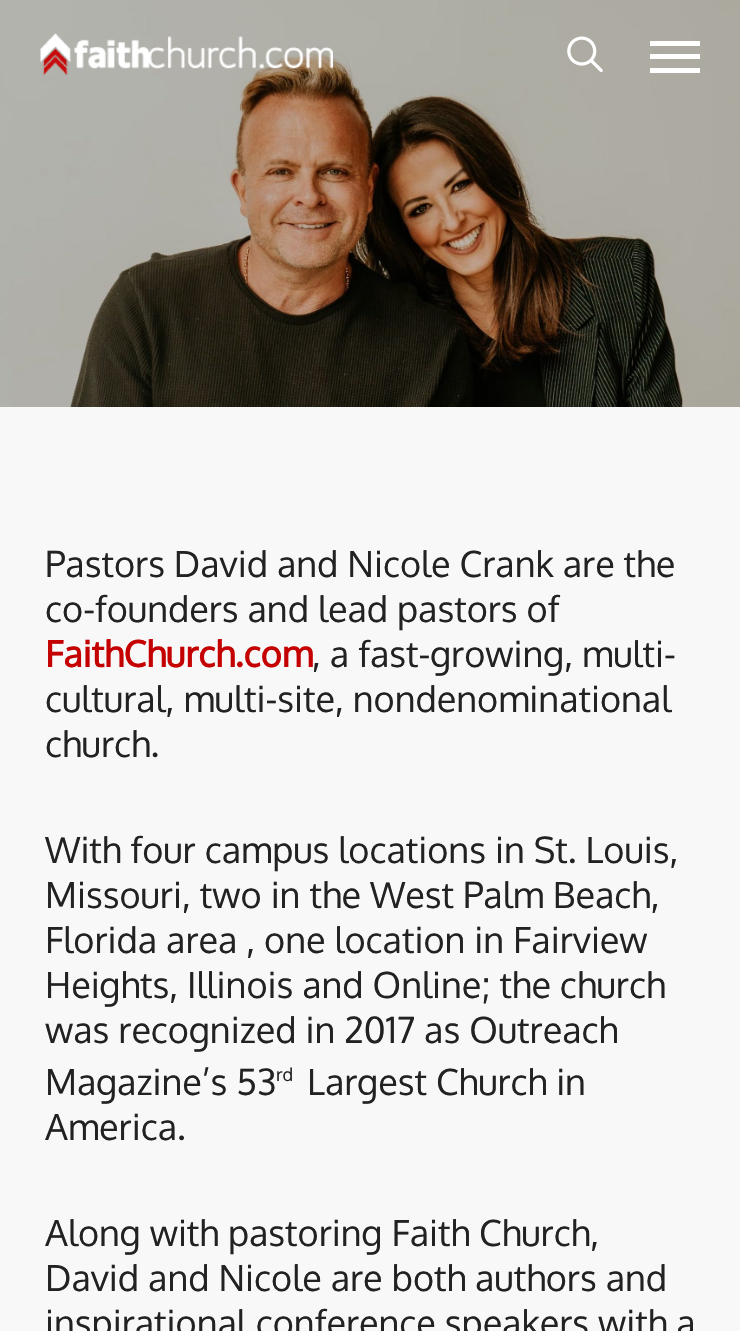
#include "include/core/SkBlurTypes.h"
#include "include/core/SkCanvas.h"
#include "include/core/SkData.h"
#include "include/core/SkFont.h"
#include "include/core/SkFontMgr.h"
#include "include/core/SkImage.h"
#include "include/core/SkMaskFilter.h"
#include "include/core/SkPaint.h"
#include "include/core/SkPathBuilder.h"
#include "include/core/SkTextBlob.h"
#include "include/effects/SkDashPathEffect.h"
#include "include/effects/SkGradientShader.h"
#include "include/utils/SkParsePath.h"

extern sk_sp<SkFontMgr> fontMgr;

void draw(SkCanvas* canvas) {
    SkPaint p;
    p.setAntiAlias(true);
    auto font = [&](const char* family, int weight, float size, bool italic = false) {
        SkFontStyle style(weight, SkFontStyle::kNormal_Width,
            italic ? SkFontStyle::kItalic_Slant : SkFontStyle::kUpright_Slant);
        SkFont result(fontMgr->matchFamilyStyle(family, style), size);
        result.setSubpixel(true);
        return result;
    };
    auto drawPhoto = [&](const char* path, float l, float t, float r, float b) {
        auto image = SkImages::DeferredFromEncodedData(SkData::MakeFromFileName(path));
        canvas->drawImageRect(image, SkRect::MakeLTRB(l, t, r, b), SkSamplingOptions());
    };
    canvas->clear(0xFFFFFFFF);
    drawPhoto("media/3.png", 0, 0, 740, 407);
    drawPhoto("media/1.png", 40, 33, 333, 76);
    drawPhoto("media/2.png", 567, 36, 603, 72);
    {
        const struct { float l, t, r, b; SkColor color; } items[] = {
            {650, 41, 700, 46, 0xFFFFFFFF},
            {650, 68, 700, 73, 0xFFFFFFFF},
            {650, 54, 700, 59, 0xFFFFFFFF},
            {0, 407, 740, 1331, 0xFFF8F8F8},
        };
        for (auto [l, t, r, b, color] : items) {
            p.setColor(color);
            canvas->drawRect(SkRect::MakeLTRB(l, t, r, b), p);
        }
    }
    auto font1 = font("Oxygen", 400, 36);
    p.setColor(0xFF222222);
    canvas->drawString("Pastors David and Nicole Crank are the", 45, 577, font1, p);
    canvas->drawString("co-founders and lead pastors of", 45, 622, font1, p);
    auto font2 = font("Oxygen", 700, 36);
    p.setColor(0xFFC40000);
    canvas->drawString("FaithChurch.com", 45, 667, font2, p);
    p.setColor(0xFF222222);
    {
        const struct { const char* s; float x, y; } items[] = {
            {", a fast-growing, multi-", 312, 667},
            {"cultural, multi-site, nondenominational", 45, 712},
            {"church.", 45, 757},
            {"With four campus locations in St. Louis,", 45, 863},
            {"Missouri, two in the West Palm Beach,", 45, 908},
            {"Florida area , one location in Fairview", 45, 953},
            {"Heights, Illinois and Online; the church", 45, 998},
            {"was recognized in 2017 as Outreach", 45, 1043},
            {"Magazine’s 53", 45, 1095},
        };
        for (auto [s, x, y] : items) {
            canvas->drawString(s, x, y, font1, p);
        }
    }
    auto font3 = font("Oxygen", 400, 18);
    canvas->drawString("rd", 276, 1081, font3, p);
    {
        const struct { const char* s; float x, y; } items[] = {
            {"Largest Church in", 307, 1095},
            {"America.", 45, 1140},
            {"Along with pastoring Faith Church,", 45, 1246},
            {"David and Nicole are both authors and", 45, 1291},
            {"inspirational conference speakers with a", 45, 1336},
        };
        for (auto [s, x, y] : items) {
            canvas->drawString(s, x, y, font1, p);
        }
    }
}
